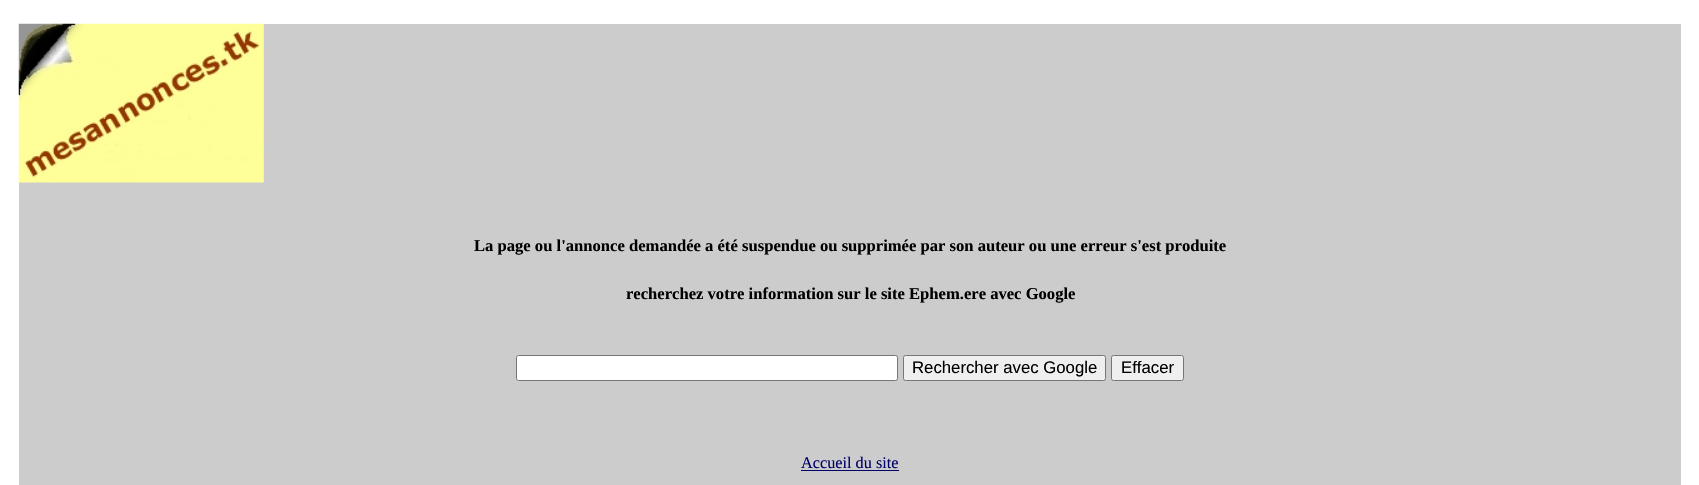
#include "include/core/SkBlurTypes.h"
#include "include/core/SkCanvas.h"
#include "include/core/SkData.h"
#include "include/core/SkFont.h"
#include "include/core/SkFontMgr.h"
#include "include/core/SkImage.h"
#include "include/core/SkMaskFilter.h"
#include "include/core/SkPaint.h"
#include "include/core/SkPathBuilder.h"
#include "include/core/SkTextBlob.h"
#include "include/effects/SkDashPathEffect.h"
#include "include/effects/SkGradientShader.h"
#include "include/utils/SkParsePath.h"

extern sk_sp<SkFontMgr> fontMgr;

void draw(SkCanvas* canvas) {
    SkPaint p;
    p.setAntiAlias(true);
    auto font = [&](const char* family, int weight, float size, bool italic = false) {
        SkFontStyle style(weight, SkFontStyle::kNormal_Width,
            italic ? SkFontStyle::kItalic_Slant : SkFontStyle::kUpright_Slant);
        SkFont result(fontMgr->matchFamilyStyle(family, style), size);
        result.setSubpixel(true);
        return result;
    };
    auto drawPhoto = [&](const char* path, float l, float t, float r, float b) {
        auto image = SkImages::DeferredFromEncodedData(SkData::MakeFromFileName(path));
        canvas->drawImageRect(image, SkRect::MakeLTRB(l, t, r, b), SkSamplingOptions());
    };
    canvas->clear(0xFFFFFFFF);
    p.setColor(0xFFCCCCCC);
    canvas->drawRect(SkRect::MakeLTRB(19, 24, 1681, 485), p);
    drawPhoto("media/1.png", 18, 23, 264, 183);
    auto font1 = font("Liberation Serif", 700, 16.6f);
    p.setColor(0xFF000000);
    {
        const struct { const char* s; float x, y; } items[] = {
            {"La page ou l'annonce demandée a été", 474, 251},
            {"suspendue ou supprimée par son auteur ou une erreur s'est produite", 742, 251},
            {"recherchez votre information sur le site Ephem.ere avec Google", 626, 299},
        };
        for (auto [s, x, y] : items) {
            canvas->drawString(s, x, y, font1, p);
        }
    }
    p.setColor(0xFFFFFFFF);
    canvas->drawRoundRect(SkRect::MakeLTRB(516.5f, 355.5f, 897.5f, 380.5f), 2, 2, p);
    p.setStyle(SkPaint::kStroke_Style);
    p.setStrokeWidth(1);
    p.setColor(0xFF767676);
    canvas->drawRoundRect(SkRect::MakeLTRB(516.5f, 355.5f, 897.5f, 380.5f), 2, 2, p);
    p.setStyle(SkPaint::kFill_Style);
    p.setColor(0xFFEFEFEF);
    canvas->drawRoundRect(SkRect::MakeLTRB(903.5f, 355.5f, 1105.5f, 380.5f), 2, 2, p);
    p.setStyle(SkPaint::kStroke_Style);
    p.setColor(0xFF767676);
    canvas->drawRoundRect(SkRect::MakeLTRB(903.5f, 355.5f, 1105.5f, 380.5f), 2, 2, p);
    auto font2 = font("Liberation Sans", 400, 16.75f);
    p.setStyle(SkPaint::kFill_Style);
    p.setColor(0xFF000000);
    canvas->drawString("Rechercher avec Google", 912, 373, font2, p);
    p.setColor(0xFFEFEFEF);
    canvas->drawRoundRect(SkRect::MakeLTRB(1111.5f, 355.5f, 1183.5f, 380.5f), 2, 2, p);
    p.setStyle(SkPaint::kStroke_Style);
    p.setColor(0xFF767676);
    canvas->drawRoundRect(SkRect::MakeLTRB(1111.5f, 355.5f, 1183.5f, 380.5f), 2, 2, p);
    p.setStyle(SkPaint::kFill_Style);
    p.setColor(0xFF000000);
    canvas->drawString("Effacer", 1121, 373, font2, p);
    auto font3 = font("Liberation Serif", 400, 16.25f);
    p.setColor(0xFF000066);
    canvas->drawString("Accueil du site", 801, 468, font3, p);
    canvas->drawRect(SkRect::MakeLTRB(801, 470, 899, 471), p);
}
